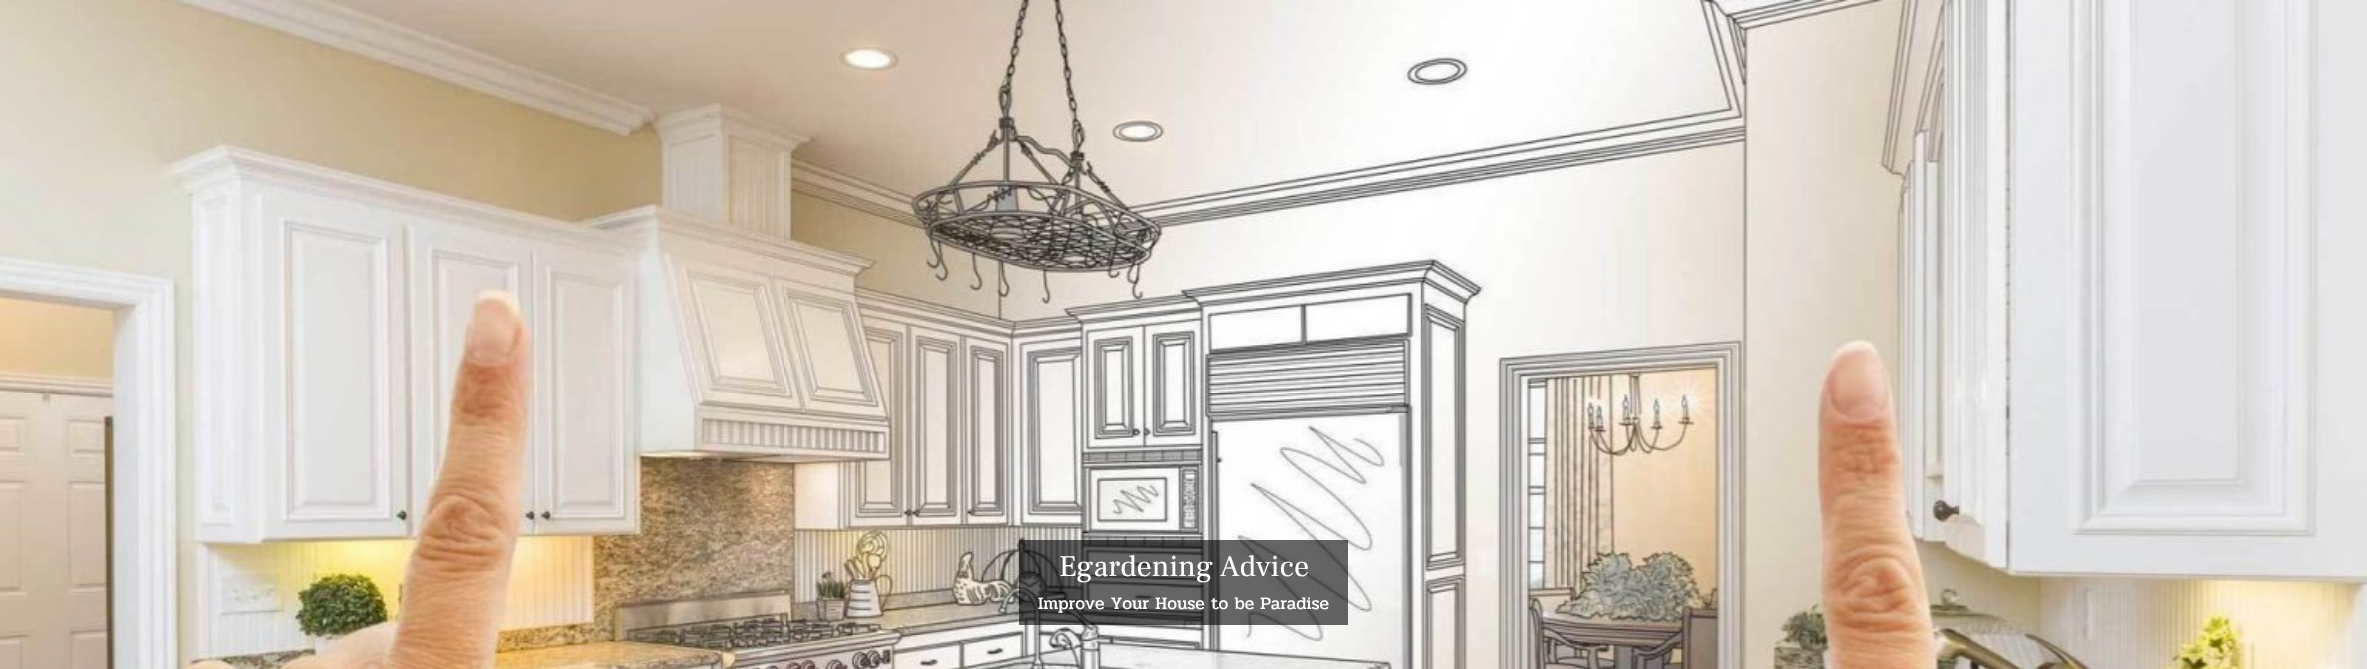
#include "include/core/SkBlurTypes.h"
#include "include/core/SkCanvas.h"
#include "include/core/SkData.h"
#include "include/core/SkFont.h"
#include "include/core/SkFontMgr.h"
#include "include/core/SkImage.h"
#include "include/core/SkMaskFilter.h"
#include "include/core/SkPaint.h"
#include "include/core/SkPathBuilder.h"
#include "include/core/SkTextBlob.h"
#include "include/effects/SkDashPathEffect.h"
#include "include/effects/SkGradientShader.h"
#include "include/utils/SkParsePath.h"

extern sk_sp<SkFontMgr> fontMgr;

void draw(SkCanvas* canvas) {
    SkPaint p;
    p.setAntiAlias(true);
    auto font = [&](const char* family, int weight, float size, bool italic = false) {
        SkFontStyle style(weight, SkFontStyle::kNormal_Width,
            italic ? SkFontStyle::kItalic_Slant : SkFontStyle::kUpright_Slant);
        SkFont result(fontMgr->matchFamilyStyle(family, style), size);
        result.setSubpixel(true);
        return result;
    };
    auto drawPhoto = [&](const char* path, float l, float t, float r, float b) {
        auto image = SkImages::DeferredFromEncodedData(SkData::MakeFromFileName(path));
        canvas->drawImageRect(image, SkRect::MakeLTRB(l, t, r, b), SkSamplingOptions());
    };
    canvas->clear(0xFFFFFFFF);
    drawPhoto("media/1.png", 2366, 0, 2367, 669);
    drawPhoto("media/2.png", 0, 0, 2367, 669);
    p.setColor(0x99000000);
    canvas->drawRect(SkRect::MakeLTRB(1019, 540, 1348, 625), p);
    auto font1 = font("Frank Ruhl Libre", 400, 30);
    p.setColor(0xFFFFFFFF);
    canvas->drawString("Egardening Advice", 1059, 576, font1, p);
    auto font2 = font("Pridi", 400, 17.5f);
    canvas->drawString("Improve Your House to be Paradise", 1038, 609, font2, p);
}
